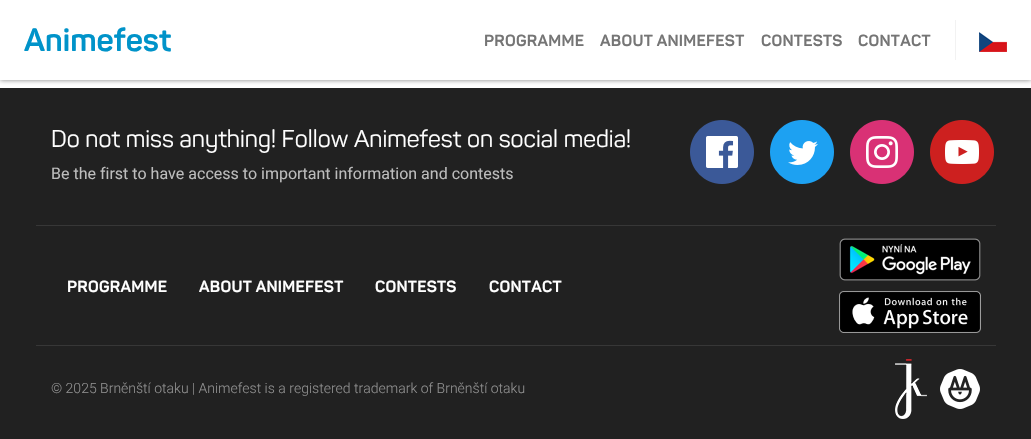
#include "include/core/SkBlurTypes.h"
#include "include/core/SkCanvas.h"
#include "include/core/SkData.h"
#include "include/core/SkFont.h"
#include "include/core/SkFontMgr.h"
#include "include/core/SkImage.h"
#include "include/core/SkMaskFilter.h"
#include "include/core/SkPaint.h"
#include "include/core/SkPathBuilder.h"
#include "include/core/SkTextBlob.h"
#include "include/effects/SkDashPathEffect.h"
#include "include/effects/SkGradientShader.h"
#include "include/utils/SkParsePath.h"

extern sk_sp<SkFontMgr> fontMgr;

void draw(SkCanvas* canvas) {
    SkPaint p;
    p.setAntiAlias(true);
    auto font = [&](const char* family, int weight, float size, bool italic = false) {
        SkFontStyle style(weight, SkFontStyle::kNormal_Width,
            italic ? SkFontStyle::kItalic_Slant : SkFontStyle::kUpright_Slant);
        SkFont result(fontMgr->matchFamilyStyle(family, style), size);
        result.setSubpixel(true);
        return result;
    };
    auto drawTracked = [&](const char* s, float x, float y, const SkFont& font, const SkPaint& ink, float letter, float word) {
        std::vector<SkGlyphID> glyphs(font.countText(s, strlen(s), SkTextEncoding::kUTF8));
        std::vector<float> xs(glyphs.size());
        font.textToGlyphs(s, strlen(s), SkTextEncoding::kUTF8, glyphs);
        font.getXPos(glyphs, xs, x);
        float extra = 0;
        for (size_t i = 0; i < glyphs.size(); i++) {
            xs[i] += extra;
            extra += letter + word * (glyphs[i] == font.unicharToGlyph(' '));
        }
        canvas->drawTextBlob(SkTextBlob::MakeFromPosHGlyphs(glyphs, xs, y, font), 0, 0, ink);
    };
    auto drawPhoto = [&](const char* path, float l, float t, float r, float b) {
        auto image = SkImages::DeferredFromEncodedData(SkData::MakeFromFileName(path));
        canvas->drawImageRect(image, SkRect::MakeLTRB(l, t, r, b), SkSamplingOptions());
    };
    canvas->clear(0xFFFFFFFF);
    p.setColor(0xFF212121);
    canvas->drawRect(SkRect::MakeLTRB(0, 88, 1031, 439), p);
    p.setColor(0x80000000);
    p.setMaskFilter(SkMaskFilter::MakeBlur(kNormal_SkBlurStyle, 2.5f));
    canvas->drawRect(SkRect::MakeLTRB(0, 0, 1031, 80), p);
    p.setMaskFilter(nullptr);
    p.setColor(0xFFFFFFFF);
    canvas->drawRect(SkRect::MakeLTRB(0, 0, 1031, 80), p);
    auto font1 = font("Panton", 700, 32);
    p.setColor(0xFF0093C9);
    canvas->drawString("Animefest", 24, 51, font1, p);
    auto font2 = font("Panton", 700, 16);
    p.setColor(0xFF757575);
    {
        const struct { const char* s; float x, y; } items[] = {
            {"PROGRAMME", 484, 46},
            {"ABOUT ANIMEFEST", 600, 46},
            {"CONTESTS", 761, 46},
            {"CONTACT", 858, 46},
        };
        for (auto [s, x, y] : items) {
            drawTracked(s, x, y, font2, p, 0.25f, 0);
        }
    }
    p.setColor(0xFFF2F2F2);
    canvas->drawRect(SkRect::MakeLTRB(955, 20, 956, 60), p);
    drawPhoto("media/1.png", 979, 32, 1007, 52);
    p.setColor(0xFF373737);
    canvas->drawRect(SkRect::MakeLTRB(36, 225, 996, 226), p);
    auto font3 = font("Panton", 400, 24);
    p.setColor(0xFFFFFFFF);
    canvas->drawString("Do not miss anything! Follow Animefest on social media!", 51, 147, font3, p);
    auto font4 = font("Roboto", 400, 16);
    p.setColor(0xFFBCBCBC);
    canvas->drawString("Be the first to have access to important information and contests", 51, 179, font4, p);
    drawPhoto("media/2.png", 690, 120, 754, 184);
    drawPhoto("media/3.png", 770, 120, 834, 184);
    drawPhoto("media/4.png", 850, 120, 914, 184);
    drawPhoto("media/5.png", 930, 120, 994, 184);
    p.setColor(0xFF373737);
    canvas->drawRect(SkRect::MakeLTRB(36, 345, 996, 346), p);
    p.setColor(0xFFFFFFFF);
    {
        const struct { const char* s; float x, y; } items[] = {
            {"PROGRAMME", 67, 292},
            {"ABOUT ANIMEFEST", 199, 292},
            {"CONTESTS", 375, 292},
            {"CONTACT", 489, 292},
        };
        for (auto [s, x, y] : items) {
            drawTracked(s, x, y, font2, p, 0.25f, 0);
        }
    }
    drawPhoto("media/6.png", 839, 238, 981, 281);
    drawPhoto("media/7.png", 839, 291, 981, 333);
    auto font5 = font("Roboto", 300, 14);
    p.setColor(0xFF909090);
    canvas->drawString("© 2025 Brněnští otaku | Animefest is a registered trademark of Brněnští otaku", 51, 393, font5, p);
    drawPhoto("media/8.png", 895, 359, 927, 419);
    drawPhoto("media/9.png", 940, 369, 980, 409);
}
